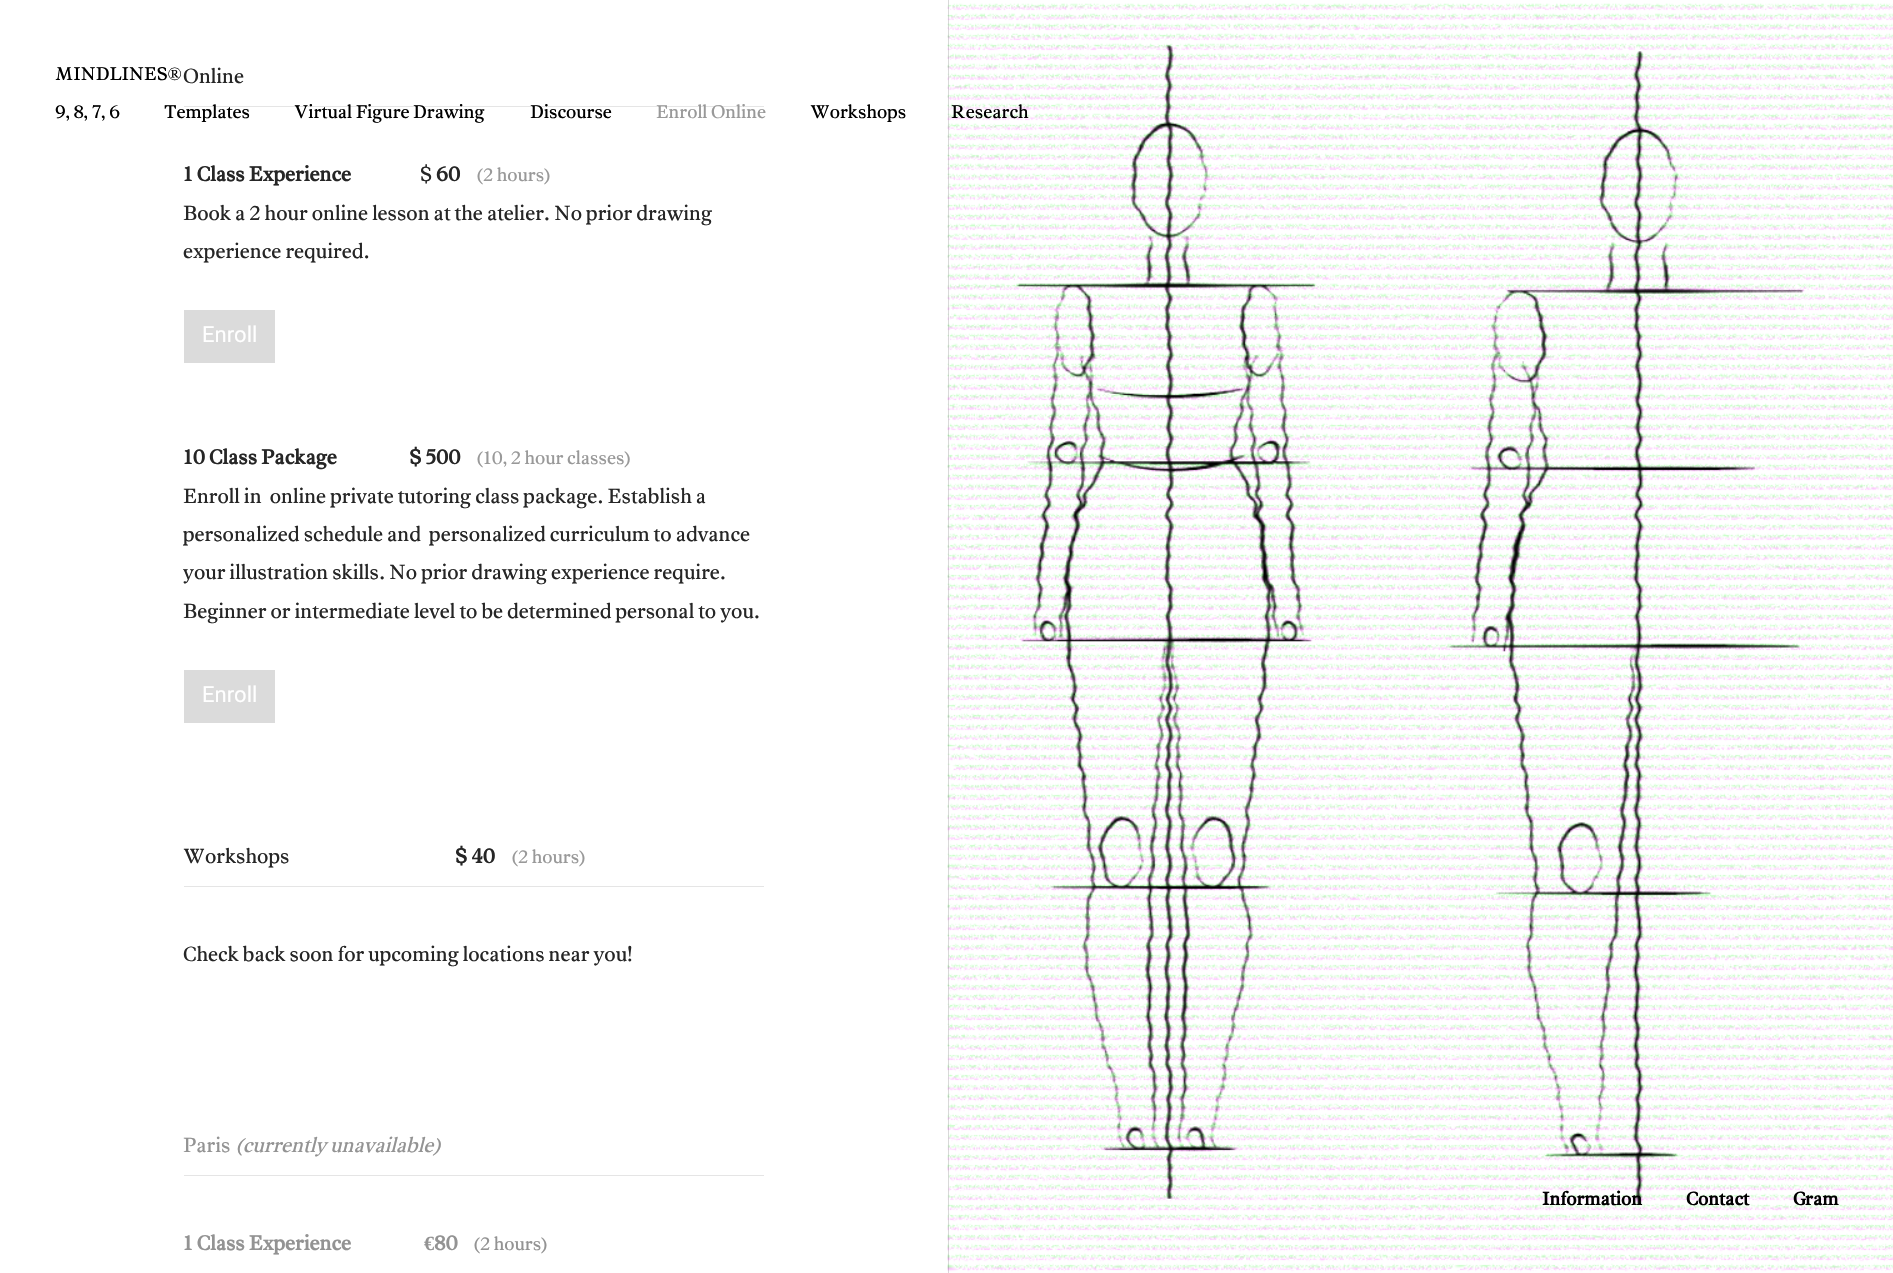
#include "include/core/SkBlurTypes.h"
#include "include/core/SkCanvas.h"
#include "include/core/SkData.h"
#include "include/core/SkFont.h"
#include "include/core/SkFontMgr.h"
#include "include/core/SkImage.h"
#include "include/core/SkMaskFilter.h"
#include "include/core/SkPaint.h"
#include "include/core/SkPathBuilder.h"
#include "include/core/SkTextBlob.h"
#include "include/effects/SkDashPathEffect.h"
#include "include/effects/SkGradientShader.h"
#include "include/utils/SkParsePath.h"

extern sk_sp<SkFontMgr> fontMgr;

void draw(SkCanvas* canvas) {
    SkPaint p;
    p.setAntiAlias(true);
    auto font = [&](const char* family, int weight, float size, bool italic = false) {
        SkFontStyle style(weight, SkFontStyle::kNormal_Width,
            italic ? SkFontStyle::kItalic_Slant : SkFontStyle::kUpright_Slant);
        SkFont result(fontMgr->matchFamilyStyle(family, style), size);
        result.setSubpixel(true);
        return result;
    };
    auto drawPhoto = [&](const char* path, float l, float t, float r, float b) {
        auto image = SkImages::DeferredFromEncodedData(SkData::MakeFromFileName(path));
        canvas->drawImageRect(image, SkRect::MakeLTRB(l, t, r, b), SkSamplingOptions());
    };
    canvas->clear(0xFFFFFFFF);
    drawPhoto("media/1.png", 947, 0, 1893, 1273);
    p.setColor(0x26000000);
    canvas->drawRect(SkRect::MakeLTRB(948, 0, 949, 1273), p);
    auto font1 = font("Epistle", 400, 18.25f);
    p.setColor(0xFF000000);
    canvas->drawString("MINDLINES®", 55, 80, font1, p);
    canvas->drawString("9, 8, 7, 6", 55, 118, font1, p);
    p.setColor(0xFFE5E5E5);
    canvas->drawRect(SkRect::MakeLTRB(184, 106, 764, 107), p);
    p.setColor(0xFF000000);
    {
        const struct { const char* s; float x, y; } items[] = {
            {"Templates", 164, 118},
            {"Virtual Figure Drawing", 294, 118},
            {"Discourse", 530, 118},
        };
        for (auto [s, x, y] : items) {
            canvas->drawString(s, x, y, font1, p);
        }
    }
    p.setColor(0xFF999999);
    canvas->drawString("Enroll Online", 656, 118, font1, p);
    p.setColor(0xFF000000);
    canvas->drawString("Workshops", 810, 118, font1, p);
    canvas->drawString("Research", 951, 118, font1, p);
    auto font2 = font("Epistle", 400, 20.2f);
    p.setColor(0xFF262626);
    canvas->drawString("Online", 183, 83, font2, p);
    auto font3 = font("Epistle", 700, 20.2f);
    canvas->drawString("1 Class Experience", 183, 181, font3, p);
    canvas->drawString("$", 420, 181, font2, p);
    canvas->drawString("60", 436, 181, font3, p);
    p.setColor(0xFF999999);
    canvas->drawString("(2 hours)", 476, 181, font1, p);
    p.setColor(0xFF262626);
    canvas->drawString("Book a 2 hour online lesson at the atelier. No prior drawing", 183, 220, font2, p);
    canvas->drawString("experience required.", 183, 258, font2, p);
    p.setColor(0xFFDBDBDB);
    canvas->drawRect(SkRect::MakeLTRB(184, 310, 275, 363), p);
    auto font4 = font("Roboto", 400, 22);
    p.setColor(0xFFFFFFFF);
    canvas->drawString("Enroll", 202, 342, font4, p);
    p.setColor(0xFF262626);
    canvas->drawString("10 Class Package                  $ 500", 183, 464, font3, p);
    p.setColor(0xFF999999);
    canvas->drawString("(10, 2 hour classes)", 476, 464, font1, p);
    p.setColor(0xFF262626);
    {
        const struct { const char* s; float x, y; } items[] = {
            {"Enroll in  online private tutoring class package. Establish a", 183, 503},
            {"personalized schedule and  personalized curriculum to advance", 183, 541},
            {"your illustration skills. No prior drawing experience require.", 183, 579},
            {"Beginner or intermediate level to be determined personal to you.", 183, 618},
        };
        for (auto [s, x, y] : items) {
            canvas->drawString(s, x, y, font2, p);
        }
    }
    p.setColor(0xFFDBDBDB);
    canvas->drawRect(SkRect::MakeLTRB(184, 670, 275, 723), p);
    p.setColor(0xFFFFFFFF);
    canvas->drawString("Enroll", 202, 702, font4, p);
    p.setColor(0xFF262626);
    canvas->drawString("Workshops", 183, 863, font2, p);
    canvas->drawString("$ 40", 455, 863, font3, p);
    p.setColor(0xFF999999);
    canvas->drawString("(2 hours)", 511, 863, font1, p);
    p.setColor(0xFFE5E5E5);
    canvas->drawRect(SkRect::MakeLTRB(184, 886, 764, 887), p);
    p.setColor(0xFF262626);
    canvas->drawString("Check back soon for upcoming locations near you!", 183, 961, font2, p);
    p.setColor(0xFF939393);
    canvas->drawString("Paris", 183, 1152, font2, p);
    auto font5 = font("Epistle", 400, 20.2f, true);
    canvas->drawString("(currently unavailable)", 235, 1152, font5, p);
    p.setColor(0xFFE5E5E5);
    canvas->drawRect(SkRect::MakeLTRB(184, 1175, 764, 1176), p);
    p.setColor(0xFF939393);
    canvas->drawString("1 Class Experience", 183, 1250, font3, p);
    auto font6 = font("Liberation Serif", 700, 20.2f);
    canvas->drawString("€", 424, 1250, font6, p);
    canvas->drawString("80", 434, 1250, font3, p);
    canvas->drawString("(2 hours)", 473, 1250, font1, p);
    auto font7 = font("Epistle", 700, 18.25f);
    p.setColor(0xFF000000);
    {
        const struct { const char* s; float x, y; } items[] = {
            {"Information", 1542, 1205},
            {"Contact", 1686, 1205},
            {"Gram", 1793, 1205},
        };
        for (auto [s, x, y] : items) {
            canvas->drawString(s, x, y, font7, p);
        }
    }
}
